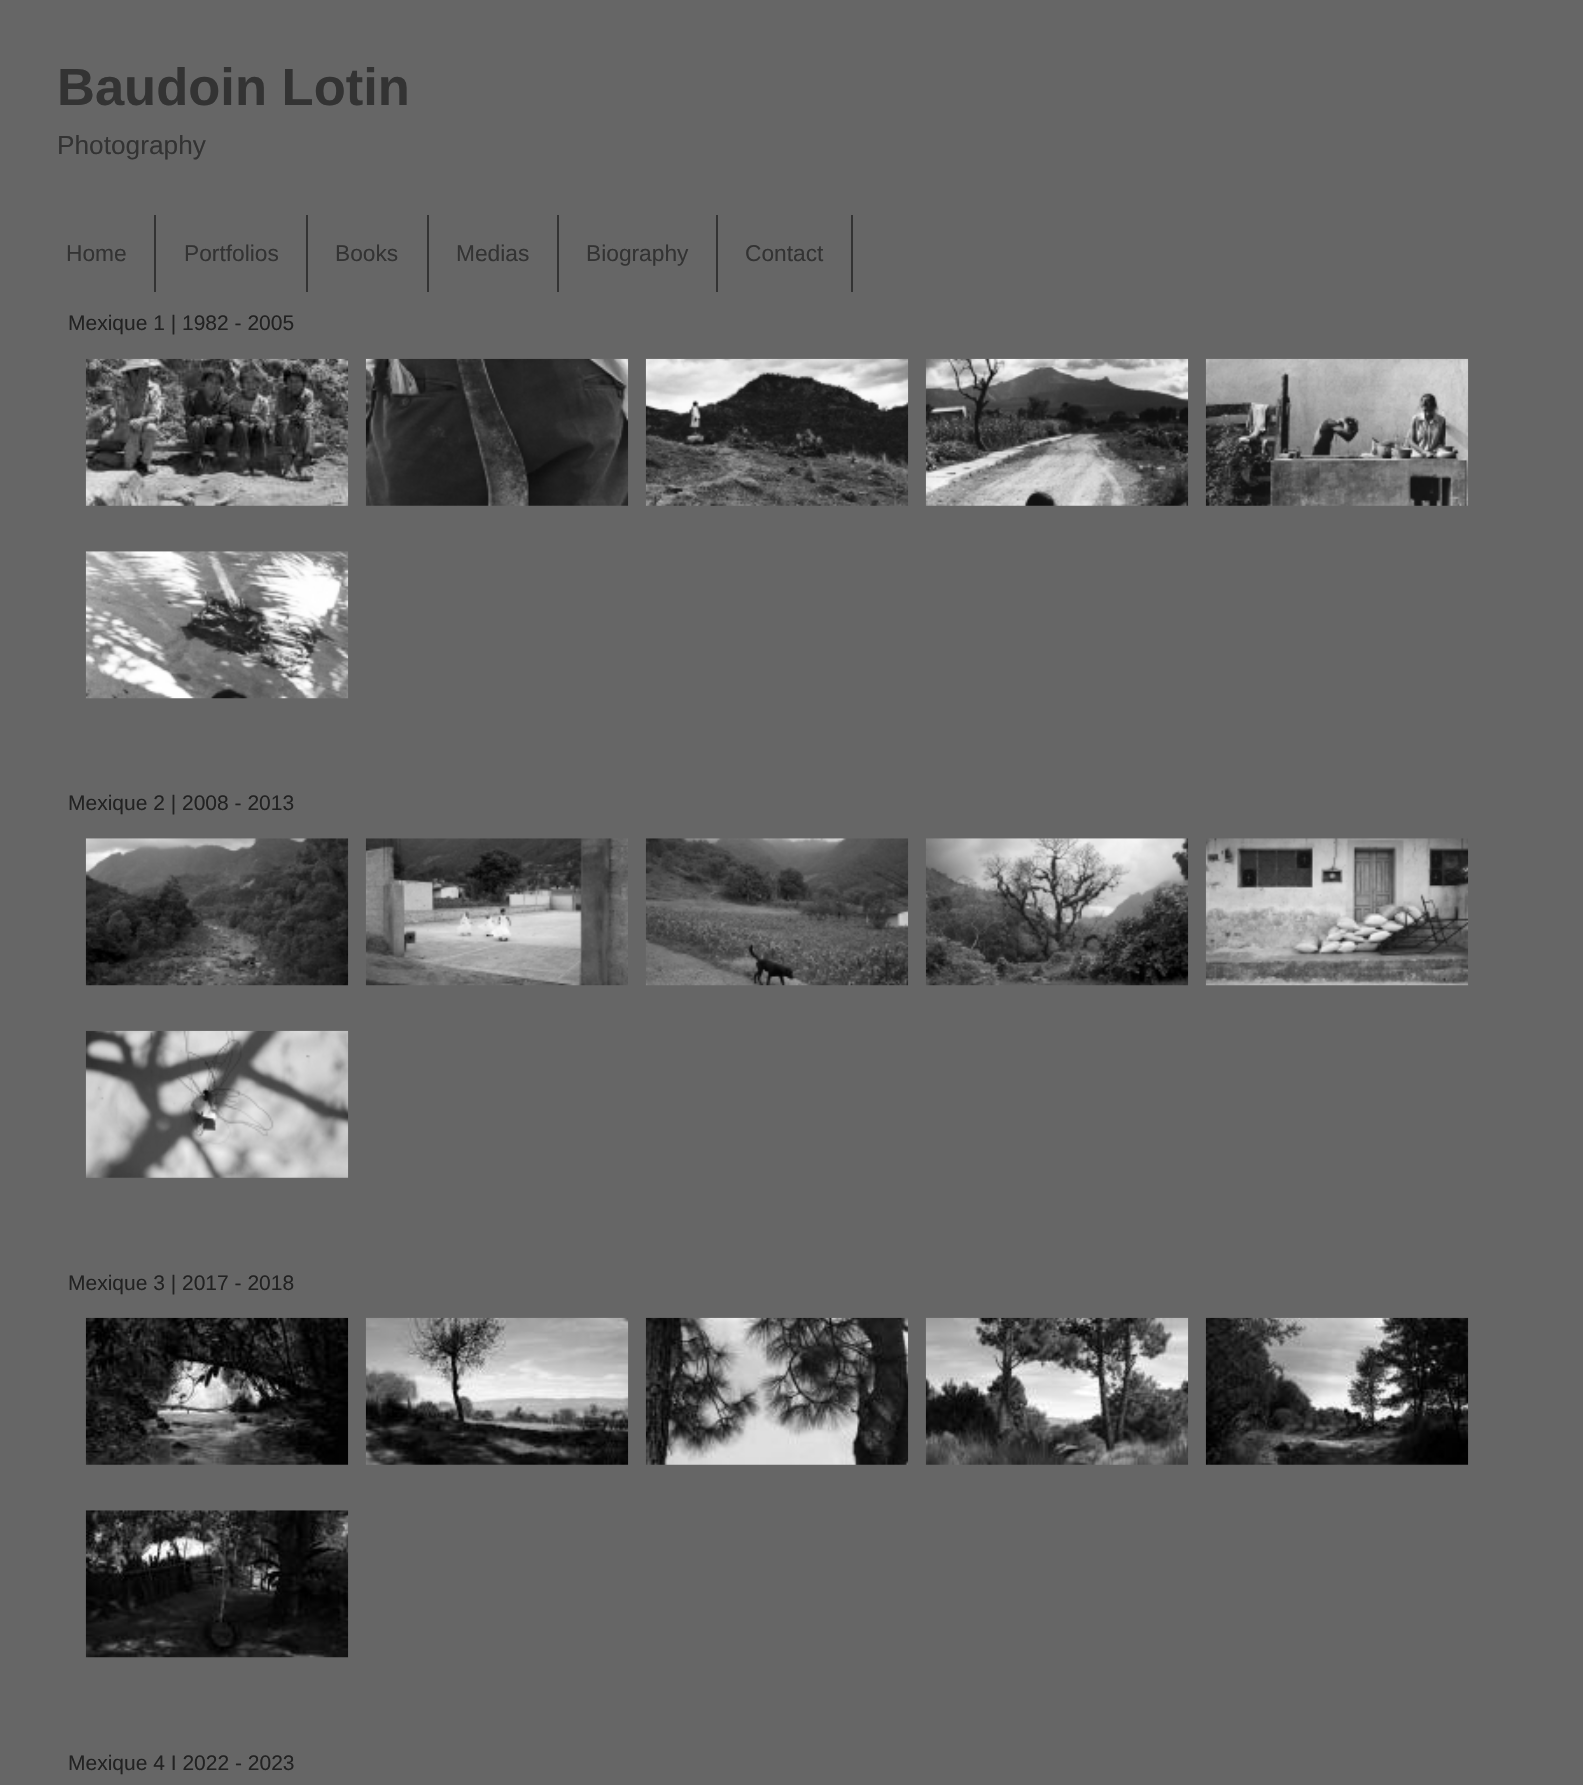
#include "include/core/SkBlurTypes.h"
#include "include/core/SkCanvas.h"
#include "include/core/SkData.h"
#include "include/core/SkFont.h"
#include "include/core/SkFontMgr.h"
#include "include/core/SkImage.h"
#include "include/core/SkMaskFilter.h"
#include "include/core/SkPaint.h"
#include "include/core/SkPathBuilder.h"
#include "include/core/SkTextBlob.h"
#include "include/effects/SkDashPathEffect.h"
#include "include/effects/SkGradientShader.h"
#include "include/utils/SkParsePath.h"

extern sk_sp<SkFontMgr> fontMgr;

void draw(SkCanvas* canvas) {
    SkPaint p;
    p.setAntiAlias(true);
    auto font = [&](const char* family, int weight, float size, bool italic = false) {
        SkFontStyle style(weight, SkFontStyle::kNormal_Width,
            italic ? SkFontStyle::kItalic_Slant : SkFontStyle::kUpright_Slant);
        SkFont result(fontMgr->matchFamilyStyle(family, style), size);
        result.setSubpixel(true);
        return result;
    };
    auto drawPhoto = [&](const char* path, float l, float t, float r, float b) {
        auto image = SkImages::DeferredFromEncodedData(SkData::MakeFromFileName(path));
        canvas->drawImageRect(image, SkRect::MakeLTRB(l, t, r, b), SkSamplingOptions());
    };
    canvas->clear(0xFF666666);
    auto font1 = font("Liberation Sans", 700, 52.5f);
    p.setColor(0xFF333333);
    canvas->drawString("Baudoin Lotin", 57, 105, font1, p);
    auto font2 = font("Liberation Sans", 400, 26.25f);
    canvas->drawString("Photography", 57, 154, font2, p);
    canvas->drawRect(SkRect::MakeLTRB(154, 215, 156, 292), p);
    auto font3 = font("Liberation Sans", 400, 22.75f);
    canvas->drawString("Home", 66, 261, font3, p);
    canvas->drawRect(SkRect::MakeLTRB(306, 215, 308, 292), p);
    canvas->drawString("Portfolios", 184, 261, font3, p);
    canvas->drawRect(SkRect::MakeLTRB(427, 215, 429, 292), p);
    canvas->drawString("Books", 335, 261, font3, p);
    canvas->drawRect(SkRect::MakeLTRB(557, 215, 559, 292), p);
    canvas->drawString("Medias", 456, 261, font3, p);
    canvas->drawRect(SkRect::MakeLTRB(716, 215, 718, 292), p);
    canvas->drawString("Biography", 586, 261, font3, p);
    canvas->drawRect(SkRect::MakeLTRB(851, 215, 853, 292), p);
    canvas->drawString("Contact", 745, 261, font3, p);
    auto font4 = font("Liberation Sans", 400, 21);
    p.setColor(0xFF222222);
    canvas->drawString("Mexique 1 | 1982 - 2005", 68, 330, font4, p);
    drawPhoto("media/1.png", 85, 358, 349, 506);
    drawPhoto("media/2.png", 365, 358, 629, 506);
    drawPhoto("media/3.png", 645, 358, 909, 506);
    drawPhoto("media/4.png", 925, 358, 1189, 506);
    drawPhoto("media/5.png", 1205, 358, 1469, 506);
    drawPhoto("media/6.png", 85, 551, 349, 699);
    canvas->drawString("Mexique 2 | 2008 - 2013", 68, 810, font4, p);
    drawPhoto("media/7.png", 85, 838, 349, 986);
    drawPhoto("media/8.png", 365, 838, 628, 986);
    drawPhoto("media/9.png", 645, 838, 909, 986);
    drawPhoto("media/10.png", 925, 838, 1189, 986);
    drawPhoto("media/11.png", 1205, 838, 1469, 986);
    drawPhoto("media/12.png", 85, 1030, 349, 1178);
    canvas->drawString("Mexique 3 | 2017 - 2018", 68, 1290, font4, p);
    drawPhoto("media/13.png", 85, 1317, 349, 1465);
    drawPhoto("media/14.png", 365, 1317, 629, 1465);
    drawPhoto("media/15.png", 645, 1317, 909, 1465);
    drawPhoto("media/16.png", 925, 1317, 1189, 1465);
    drawPhoto("media/17.png", 1205, 1317, 1469, 1465);
    drawPhoto("media/18.png", 85, 1510, 349, 1658);
    canvas->drawString("Mexique 4 I 2022 - 2023", 68, 1770, font4, p);
}
